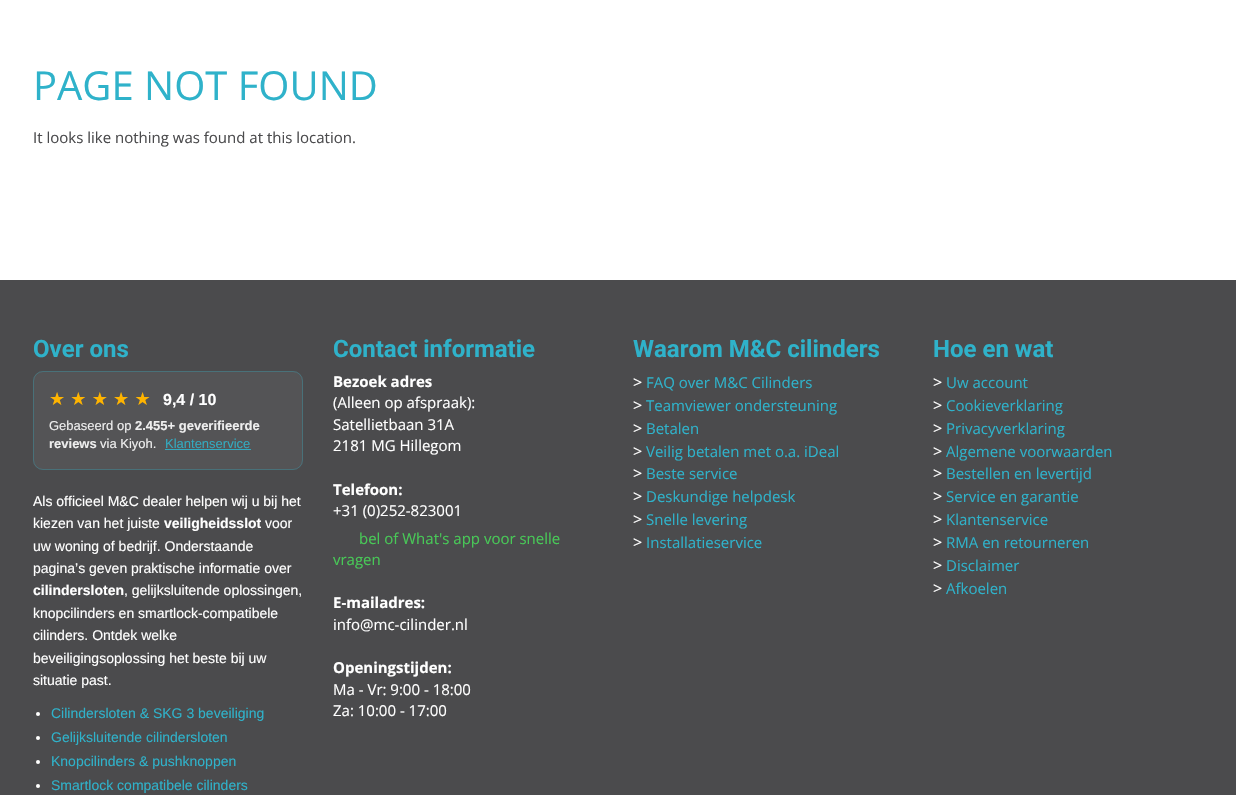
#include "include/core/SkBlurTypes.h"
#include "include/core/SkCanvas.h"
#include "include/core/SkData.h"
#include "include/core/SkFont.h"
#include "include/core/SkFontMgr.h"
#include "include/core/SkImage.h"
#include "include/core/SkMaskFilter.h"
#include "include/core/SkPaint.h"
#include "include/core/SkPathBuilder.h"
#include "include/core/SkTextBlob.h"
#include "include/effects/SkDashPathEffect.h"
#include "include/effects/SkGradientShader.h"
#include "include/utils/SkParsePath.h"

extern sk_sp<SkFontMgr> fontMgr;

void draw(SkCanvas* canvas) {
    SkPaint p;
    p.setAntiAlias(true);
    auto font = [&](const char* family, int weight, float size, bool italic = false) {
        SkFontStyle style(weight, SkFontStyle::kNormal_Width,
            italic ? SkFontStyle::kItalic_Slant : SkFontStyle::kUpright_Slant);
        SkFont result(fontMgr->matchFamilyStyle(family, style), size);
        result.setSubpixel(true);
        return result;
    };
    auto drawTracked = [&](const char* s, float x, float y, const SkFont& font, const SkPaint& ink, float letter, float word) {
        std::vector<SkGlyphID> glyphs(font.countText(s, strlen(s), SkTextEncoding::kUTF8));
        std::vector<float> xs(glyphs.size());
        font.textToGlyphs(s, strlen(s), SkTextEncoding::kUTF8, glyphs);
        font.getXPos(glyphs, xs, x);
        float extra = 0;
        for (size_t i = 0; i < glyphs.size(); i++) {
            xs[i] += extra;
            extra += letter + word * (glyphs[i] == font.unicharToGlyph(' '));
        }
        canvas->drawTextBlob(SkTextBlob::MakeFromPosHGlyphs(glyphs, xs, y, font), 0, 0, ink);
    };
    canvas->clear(0xFFFFFFFF);
    auto font1 = font("Open Sans", 400, 40);
    p.setColor(0xFF2FB2CA);
    canvas->drawString("PAGE NOT FOUND", 33, 100, font1, p);
    auto font2 = font("Open Sans", 400, 15);
    p.setColor(0xFF4B4B4D);
    canvas->drawString("It looks like nothing was found at this location.", 33, 143, font2, p);
    canvas->drawRect(SkRect::MakeLTRB(0, 280, 1236, 795), p);
    auto font3 = font("Roboto", 700, 24);
    p.setColor(0xFF2FB2CA);
    canvas->drawString("Over ons", 33, 357, font3, p);
    p.setColor(0xFF545456);
    canvas->drawRoundRect(SkRect::MakeLTRB(33, 371, 303, 470), 10, 10, p);
    p.setStyle(SkPaint::kStroke_Style);
    p.setStrokeWidth(1);
    p.setColor(0x4D2FB2CA);
    canvas->drawRoundRect(SkRect::MakeLTRB(33.5f, 371.5f, 302.5f, 469.5f), 9.5f, 9.5f, p);
    auto font4 = font("DejaVu Sans", 400, 18);
    p.setStyle(SkPaint::kFill_Style);
    p.setColor(0xFFFFB400);
    drawTracked("★ ★ ★ ★ ★", 49, 405, font4, p, 0, -0.5f);
    auto font5 = font("Liberation Sans", 700, 16);
    p.setColor(0xFFFFFFFF);
    canvas->drawString("9,4 / 10", 163, 405, font5, p);
    auto font6 = font("Liberation Sans", 400, 13);
    p.setColor(0xFFEEEEEE);
    canvas->drawString("Gebaseerd op", 49, 430, font6, p);
    auto font7 = font("Liberation Sans", 700, 13);
    canvas->drawString("2.455+ geverifieerde", 135, 430, font7, p);
    canvas->drawString("reviews", 49, 448, font7, p);
    canvas->drawString("via Kiyoh.", 100, 448, font6, p);
    p.setColor(0xFF33A9BE);
    canvas->drawString("Klantenservice", 165, 448, font6, p);
    canvas->drawRect(SkRect::MakeLTRB(165, 449, 251, 450), p);
    auto font8 = font("Liberation Sans", 400, 14);
    p.setColor(0xFFFFFFFF);
    canvas->drawString("Als officieel M&C dealer helpen wij u bij het", 33, 506, font8, p);
    canvas->drawString("kiezen van het juiste", 33, 528, font8, p);
    auto font9 = font("Liberation Sans", 700, 14);
    canvas->drawString("veiligheidsslot", 164, 528, font9, p);
    {
        const struct { const char* s; float x, y; } items[] = {
            {"voor", 265, 528},
            {"uw woning of bedrijf. Onderstaande", 33, 551},
            {"pagina’s geven praktische informatie over", 33, 573},
        };
        for (auto [s, x, y] : items) {
            canvas->drawString(s, x, y, font8, p);
        }
    }
    canvas->drawString("cilindersloten", 33, 595, font9, p);
    {
        const struct { const char* s; float x, y; } items[] = {
            {", gelijksluitende oplossingen,", 124, 595},
            {"knopcilinders en smartlock-compatibele", 33, 618},
            {"cilinders. Ontdek welke", 33, 640},
            {"beveiligingsoplossing het beste bij uw", 33, 663},
            {"situatie past.", 33, 685},
        };
        for (auto [s, x, y] : items) {
            canvas->drawString(s, x, y, font8, p);
        }
    }
    canvas->drawCircle(38, 714, 2, p);
    p.setColor(0xFF2FB2CA);
    canvas->drawString("Cilindersloten & SKG 3 beveiliging", 51, 718, font8, p);
    p.setColor(0xFFFFFFFF);
    canvas->drawCircle(38, 738, 2, p);
    p.setColor(0xFF2FB2CA);
    canvas->drawString("Gelijksluitende cilindersloten", 51, 742, font8, p);
    p.setColor(0xFFFFFFFF);
    canvas->drawCircle(38, 762, 2, p);
    p.setColor(0xFF2FB2CA);
    canvas->drawString("Knopcilinders & pushknoppen", 51, 766, font8, p);
    p.setColor(0xFFFFFFFF);
    canvas->drawCircle(38, 786, 2, p);
    p.setColor(0xFF2FB2CA);
    canvas->drawString("Smartlock compatibele cilinders", 51, 790, font8, p);
    canvas->drawString("Contact informatie", 333, 357, font3, p);
    auto font10 = font("Open Sans", 700, 15);
    p.setColor(0xFFFFFFFF);
    canvas->drawString("Bezoek adres", 333, 387, font10, p);
    {
        const struct { const char* s; float x, y; } items[] = {
            {"(Alleen op afspraak):", 333, 408},
            {"Satellietbaan 31A", 333, 430},
            {"2181 MG Hillegom", 333, 451},
        };
        for (auto [s, x, y] : items) {
            canvas->drawString(s, x, y, font2, p);
        }
    }
    canvas->drawString("Telefoon:", 333, 495, font10, p);
    canvas->drawString("+31 (0)252-823001", 333, 516, font2, p);
    p.setColor(0xFF48C857);
    canvas->drawString("bel of What's app voor snelle", 359, 544, font2, p);
    canvas->drawString("vragen", 333, 565, font2, p);
    p.setColor(0xFFFFFFFF);
    canvas->drawString("E-mailadres:", 333, 608, font10, p);
    canvas->drawString("info@mc-cilinder.nl", 333, 630, font2, p);
    canvas->drawString("Openingstijden:", 333, 673, font10, p);
    canvas->drawString("Ma - Vr: 9:00 - 18:00", 333, 695, font2, p);
    canvas->drawString("Za: 10:00 - 17:00", 333, 716, font2, p);
    p.setColor(0xFF2FB2CA);
    canvas->drawString("Waarom M&C cilinders", 633, 357, font3, p);
    auto font11 = font("Open Sans", 400, 16);
    p.setColor(0xFFFFFFFF);
    canvas->drawString(">", 633, 388, font11, p);
    p.setColor(0xFF2FB2CA);
    canvas->drawString("FAQ over M&C Cilinders", 646, 388, font2, p);
    p.setColor(0xFFFFFFFF);
    canvas->drawString(">", 633, 411, font11, p);
    p.setColor(0xFF2FB2CA);
    canvas->drawString("Teamviewer ondersteuning", 646, 411, font2, p);
    p.setColor(0xFFFFFFFF);
    canvas->drawString(">", 633, 434, font11, p);
    p.setColor(0xFF2FB2CA);
    canvas->drawString("Betalen", 646, 434, font2, p);
    p.setColor(0xFFFFFFFF);
    canvas->drawString(">", 633, 457, font11, p);
    p.setColor(0xFF2FB2CA);
    canvas->drawString("Veilig betalen met o.a. iDeal", 646, 457, font2, p);
    p.setColor(0xFFFFFFFF);
    canvas->drawString(">", 633, 479, font11, p);
    p.setColor(0xFF2FB2CA);
    canvas->drawString("Beste service", 646, 479, font2, p);
    p.setColor(0xFFFFFFFF);
    canvas->drawString(">", 633, 502, font11, p);
    p.setColor(0xFF2FB2CA);
    canvas->drawString("Deskundige helpdesk", 646, 502, font2, p);
    p.setColor(0xFFFFFFFF);
    canvas->drawString(">", 633, 525, font11, p);
    p.setColor(0xFF2FB2CA);
    canvas->drawString("Snelle levering", 646, 525, font2, p);
    p.setColor(0xFFFFFFFF);
    canvas->drawString(">", 633, 548, font11, p);
    p.setColor(0xFF2FB2CA);
    canvas->drawString("Installatieservice", 646, 548, font2, p);
    canvas->drawString("Hoe en wat", 933, 357, font3, p);
    p.setColor(0xFFFFFFFF);
    canvas->drawString(">", 933, 388, font11, p);
    p.setColor(0xFF2FB2CA);
    canvas->drawString("Uw account", 946, 388, font2, p);
    p.setColor(0xFFFFFFFF);
    canvas->drawString(">", 933, 411, font11, p);
    p.setColor(0xFF2FB2CA);
    canvas->drawString("Cookieverklaring", 946, 411, font2, p);
    p.setColor(0xFFFFFFFF);
    canvas->drawString(">", 933, 434, font11, p);
    p.setColor(0xFF2FB2CA);
    canvas->drawString("Privacyverklaring", 946, 434, font2, p);
    p.setColor(0xFFFFFFFF);
    canvas->drawString(">", 933, 457, font11, p);
    p.setColor(0xFF2FB2CA);
    canvas->drawString("Algemene voorwaarden", 946, 457, font2, p);
    p.setColor(0xFFFFFFFF);
    canvas->drawString(">", 933, 479, font11, p);
    p.setColor(0xFF2FB2CA);
    canvas->drawString("Bestellen en levertijd", 946, 479, font2, p);
    p.setColor(0xFFFFFFFF);
    canvas->drawString(">", 933, 502, font11, p);
    p.setColor(0xFF2FB2CA);
    canvas->drawString("Service en garantie", 946, 502, font2, p);
    p.setColor(0xFFFFFFFF);
    canvas->drawString(">", 933, 525, font11, p);
    p.setColor(0xFF2FB2CA);
    canvas->drawString("Klantenservice", 946, 525, font2, p);
    p.setColor(0xFFFFFFFF);
    canvas->drawString(">", 933, 548, font11, p);
    p.setColor(0xFF2FB2CA);
    canvas->drawString("RMA en retourneren", 946, 548, font2, p);
    p.setColor(0xFFFFFFFF);
    canvas->drawString(">", 933, 571, font11, p);
    p.setColor(0xFF2FB2CA);
    canvas->drawString("Disclaimer", 946, 571, font2, p);
    p.setColor(0xFFFFFFFF);
    canvas->drawString(">", 933, 594, font11, p);
    p.setColor(0xFF2FB2CA);
    canvas->drawString("Afkoelen", 946, 594, font2, p);
}
